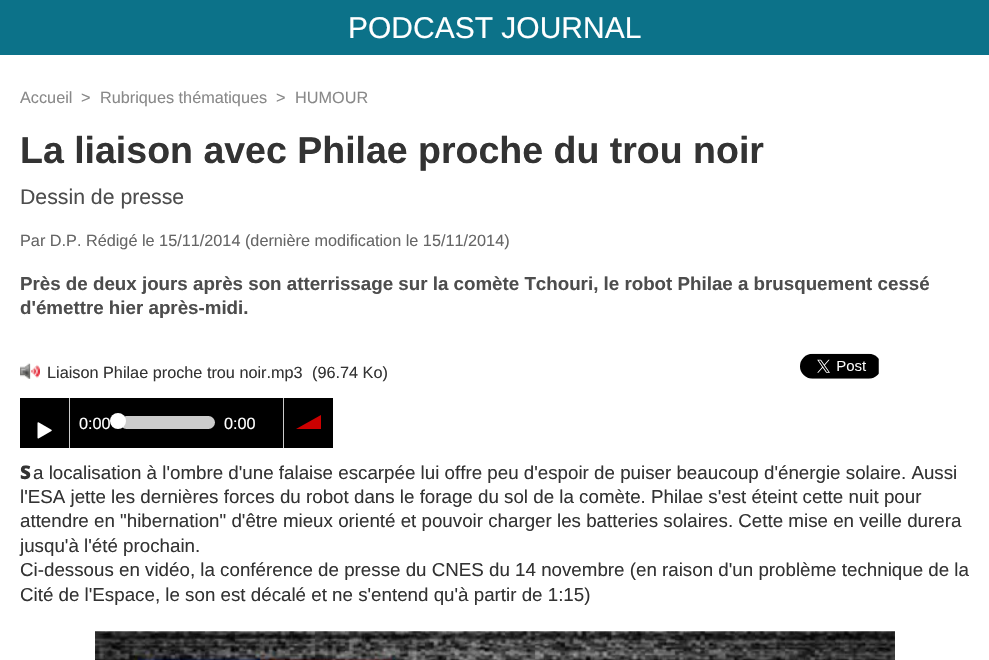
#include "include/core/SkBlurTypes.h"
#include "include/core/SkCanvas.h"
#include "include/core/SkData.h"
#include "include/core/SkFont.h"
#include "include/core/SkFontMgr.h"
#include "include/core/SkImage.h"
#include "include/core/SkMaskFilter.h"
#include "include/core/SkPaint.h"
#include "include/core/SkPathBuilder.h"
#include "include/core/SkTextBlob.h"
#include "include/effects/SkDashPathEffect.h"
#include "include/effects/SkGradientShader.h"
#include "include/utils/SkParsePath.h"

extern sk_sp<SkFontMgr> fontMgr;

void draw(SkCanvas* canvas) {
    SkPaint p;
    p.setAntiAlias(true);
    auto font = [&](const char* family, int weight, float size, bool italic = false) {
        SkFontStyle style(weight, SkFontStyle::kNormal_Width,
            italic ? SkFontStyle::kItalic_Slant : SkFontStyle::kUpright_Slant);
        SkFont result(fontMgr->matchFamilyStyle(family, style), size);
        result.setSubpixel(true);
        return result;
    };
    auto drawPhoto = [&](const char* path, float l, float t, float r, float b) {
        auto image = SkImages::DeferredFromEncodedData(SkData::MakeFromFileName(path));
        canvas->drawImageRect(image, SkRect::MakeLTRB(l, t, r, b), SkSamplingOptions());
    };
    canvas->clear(0xFFFFFFFF);
    p.setColor(0xFF0C7289);
    canvas->drawRect(SkRect::MakeLTRB(0, 0, 989, 55), p);
    auto font1 = font("Liberation Sans", 400, 30);
    p.setColor(0xFFFFFFFF);
    canvas->drawString("PODCAST JOURNAL", 348, 38, font1, p);
    auto font2 = font("Liberation Sans", 400, 16.25f);
    p.setColor(0xFF898989);
    {
        const struct { const char* s; float x, y; } items[] = {
            {"Accueil", 20, 103},
            {">", 81, 103},
            {"Rubriques thématiques", 100, 103},
            {">", 276, 103},
            {"HUMOUR", 295, 103},
        };
        for (auto [s, x, y] : items) {
            canvas->drawString(s, x, y, font2, p);
        }
    }
    auto font3 = font("Liberation Sans", 700, 37.5f);
    p.setColor(0xFF333333);
    canvas->drawString("La liaison avec Philae proche du trou noir", 20, 163, font3, p);
    auto font4 = font("Liberation Sans", 400, 21.25f);
    p.setColor(0xFF4D4D4D);
    canvas->drawString("Dessin de presse", 20, 204, font4, p);
    p.setColor(0xFF666666);
    canvas->drawString("Par D.P. Rédigé le 15/11/2014 (dernière modification le 15/11/2014)", 20, 246, font2, p);
    auto font5 = font("Liberation Sans", 700, 18.75f);
    p.setColor(0xFF4D4D4D);
    canvas->drawString("Près de deux jours après son atterrissage sur la comète Tchouri, le robot Philae a brusquement cessé", 20, 290, font5, p);
    canvas->drawString("d'émettre hier après-midi.", 20, 314, font5, p);
    drawPhoto("media/1.png", 20, 363, 40, 379);
    p.setColor(0xFF333333);
    canvas->drawString("Liaison Philae proche trou noir.mp3", 47, 378, font2, p);
    canvas->drawString("(96.74 Ko)", 312, 378, font2, p);
    p.setColor(0xFF000000);
    canvas->drawRect(SkRect::MakeLTRB(20, 398, 333, 448), p);
    p.setColor(0xFFCCCCCC);
    canvas->drawRect(SkRect::MakeLTRB(69, 398, 70, 448), p);
    drawPhoto("media/2.png", 37, 422, 52, 439);
    p.setColor(0xFFFFFFFF);
    canvas->drawString("0:00", 79, 429, font2, p);
    p.setColor(0xFFCCCCCC);
    canvas->drawRoundRect(SkRect::MakeLTRB(120, 416, 215, 429), 6.5f, 6.5f, p);
    p.setColor(0xFFFFFFFF);
    canvas->drawCircle(118, 421, 8, p);
    canvas->drawString("0:00", 224, 429, font2, p);
    p.setColor(0xFFCCCCCC);
    canvas->drawRect(SkRect::MakeLTRB(283, 398, 284, 448), p);
    p.setColor(0xFFCC0000);
    canvas->drawPath(SkPathBuilder().moveTo(321, 429).lineTo(296, 429).lineTo(321, 415).close().detach(), p);
    drawPhoto("media/3.png", 800, 353, 879, 379);
    auto font6 = font("Noto Sans", 900, 18.75f);
    p.setColor(0xFF333333);
    canvas->drawString("S", 20, 479, font6, p);
    auto font7 = font("Liberation Sans", 400, 18.75f);
    {
        const struct { const char* s; float x, y; } items[] = {
            {"a localisation à l'ombre d'une falaise escarpée lui offre peu d'espoir de puiser beaucoup d'énergie solaire. Aussi", 33, 479},
            {"l'ESA jette les dernières forces du robot dans le forage du sol de la comète. Philae s'est éteint cette nuit pour", 20, 503},
            {"attendre en \"hibernation\" d'être mieux orienté et pouvoir charger les batteries solaires. Cette mise en veille durera", 20, 527},
            {"jusqu'à l'été prochain.", 20, 552},
            {"Ci-dessous en vidéo, la conférence de presse du CNES du 14 novembre (en raison d'un problème technique de la", 20, 576},
            {"Cité de l'Espace, le son est décalé et ne s'entend qu'à partir de 1:15)", 20, 601},
        };
        for (auto [s, x, y] : items) {
            canvas->drawString(s, x, y, font7, p);
        }
    }
    drawPhoto("media/4.png", 95, 631, 895, 660);
}
